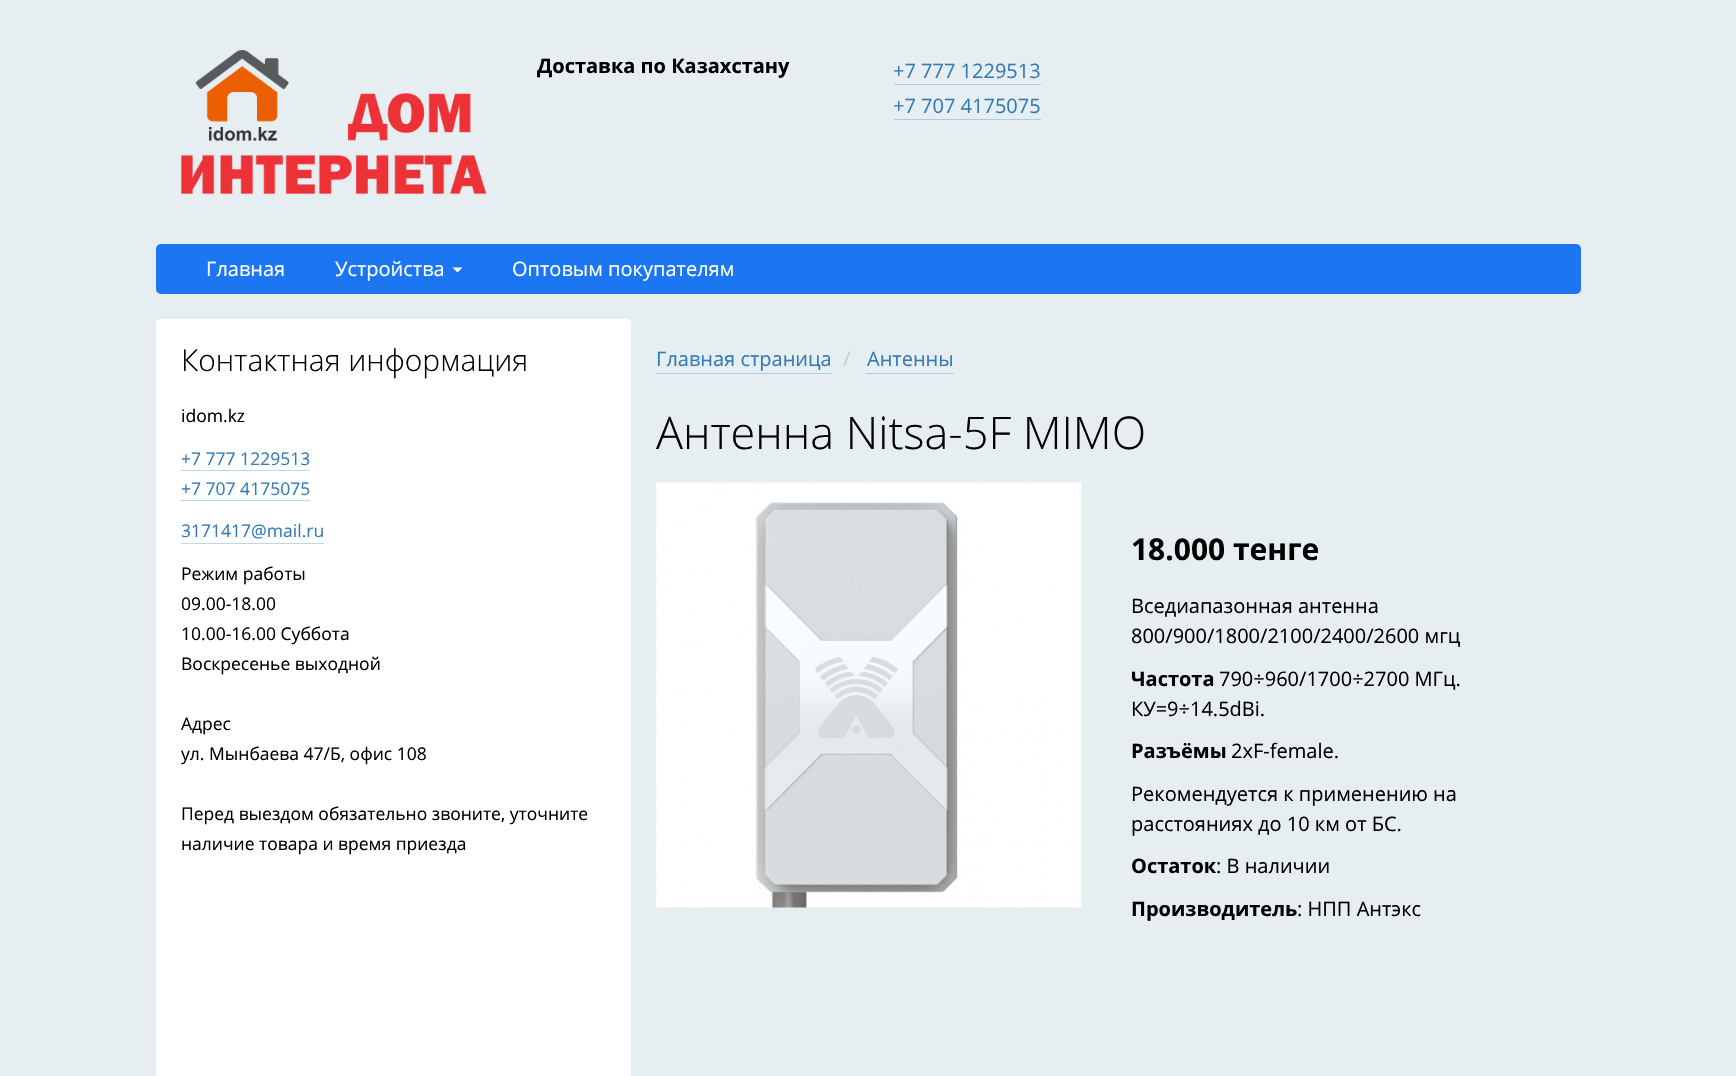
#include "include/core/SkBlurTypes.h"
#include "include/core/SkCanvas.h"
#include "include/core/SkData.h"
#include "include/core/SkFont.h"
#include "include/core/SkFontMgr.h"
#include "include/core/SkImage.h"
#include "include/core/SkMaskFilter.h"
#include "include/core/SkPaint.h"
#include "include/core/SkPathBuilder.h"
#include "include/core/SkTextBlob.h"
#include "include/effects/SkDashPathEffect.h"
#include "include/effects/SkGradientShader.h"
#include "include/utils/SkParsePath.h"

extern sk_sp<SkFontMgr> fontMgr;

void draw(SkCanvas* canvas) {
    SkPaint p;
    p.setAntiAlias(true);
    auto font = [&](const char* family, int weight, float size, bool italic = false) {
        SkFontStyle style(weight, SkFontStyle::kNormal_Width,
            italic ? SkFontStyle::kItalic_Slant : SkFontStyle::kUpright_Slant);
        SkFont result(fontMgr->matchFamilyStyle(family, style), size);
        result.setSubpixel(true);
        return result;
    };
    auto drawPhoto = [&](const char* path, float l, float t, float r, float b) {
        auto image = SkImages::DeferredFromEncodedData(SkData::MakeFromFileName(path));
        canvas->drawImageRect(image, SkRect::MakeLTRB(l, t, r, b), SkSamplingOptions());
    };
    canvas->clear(0xFFE6EEF2);
    drawPhoto("media/1.png", 181, 50, 487, 194);
    auto font1 = font("Open Sans", 700, 20);
    p.setColor(0xFF000000);
    canvas->drawString("Доставка по Казахстану", 537, 73, font1, p);
    auto font2 = font("Open Sans", 400, 20);
    p.setColor(0xFF337AB7);
    canvas->drawString("+7 777 1229513", 893, 78, font2, p);
    p.setColor(0xFFA1CFE7);
    canvas->drawRect(SkRect::MakeLTRB(894, 84, 1041, 85), p);
    p.setColor(0xFF337AB7);
    canvas->drawString("+7 707 4175075", 893, 113, font2, p);
    p.setColor(0xFFA1CFE7);
    canvas->drawRect(SkRect::MakeLTRB(894, 119, 1041, 120), p);
    p.setColor(0xFF1C76F2);
    canvas->drawRoundRect(SkRect::MakeLTRB(156, 244, 1581, 294), 5, 5, p);
    p.setColor(0xFFFFFFFF);
    canvas->drawString("Главная", 206, 276, font2, p);
    canvas->drawString("Устройства", 335, 276, font2, p);
    canvas->drawPath(SkPathBuilder().moveTo(452.5f, 267.5f).lineTo(462.5f, 267.5f).lineTo(457.5f, 272.5f).close().detach(), p);
    canvas->drawString("Оптовым покупателям", 512, 276, font2, p);
    canvas->drawRoundRect(SkRect::MakeLTRB(156, 319, 631, 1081), 5, 5, p);
    auto font3 = font("Open Sans", 300, 30);
    p.setColor(0xFF000000);
    canvas->drawString("Контактная информация", 181, 371, font3, p);
    auto font4 = font("Open Sans", 400, 17.5f);
    canvas->drawString("idom.kz", 181, 422, font4, p);
    p.setColor(0xFF337AB7);
    canvas->drawString("+7 777 1229513", 181, 465, font4, p);
    p.setColor(0xFFB3DBF0);
    canvas->drawRect(SkRect::MakeLTRB(181, 470, 310, 471), p);
    p.setColor(0xFF337AB7);
    canvas->drawString("+7 707 4175075", 181, 495, font4, p);
    p.setColor(0xFFB3DBF0);
    canvas->drawRect(SkRect::MakeLTRB(181, 500, 310, 501), p);
    p.setColor(0xFF337AB7);
    canvas->drawString("3171417@mail.ru", 181, 537, font4, p);
    p.setColor(0xFFB3DBF0);
    canvas->drawRect(SkRect::MakeLTRB(181, 543, 324, 544), p);
    p.setColor(0xFF000000);
    {
        const struct { const char* s; float x, y; } items[] = {
            {"Режим работы", 181, 580},
            {"09.00-18.00", 181, 610},
            {"10.00-16.00 Суббота", 181, 640},
            {"Воскресенье выходной", 181, 670},
            {"Адрес", 181, 730},
            {"ул. Мынбаева 47/Б, офис 108", 181, 760},
            {"Перед выездом обязательно звоните, уточните", 181, 820},
            {"наличие товара и время приезда", 181, 850},
        };
        for (auto [s, x, y] : items) {
            canvas->drawString(s, x, y, font4, p);
        }
    }
    p.setColor(0xFF337AB7);
    canvas->drawString("Главная страница", 656, 366, font2, p);
    p.setColor(0xFFA1CFE7);
    canvas->drawRect(SkRect::MakeLTRB(656, 373, 831, 374), p);
    p.setColor(0xFFCCCCCC);
    canvas->drawString("/", 843, 366, font2, p);
    p.setColor(0xFF337AB7);
    canvas->drawString("Антенны", 867, 366, font2, p);
    p.setColor(0xFFA1CFE7);
    canvas->drawRect(SkRect::MakeLTRB(866, 373, 954, 374), p);
    auto font5 = font("Open Sans", 300, 45);
    p.setColor(0xFF000000);
    canvas->drawString("Антенна Nitsa-5F MIMO", 656, 449, font5, p);
    drawPhoto("media/2.png", 656, 482, 1082, 908);
    auto font6 = font("Open Sans", 700, 30);
    canvas->drawString("18.000 тенге", 1131, 560, font6, p);
    canvas->drawString("Вседиапазонная антенна", 1131, 613, font2, p);
    canvas->drawString("800/900/1800/2100/2400/2600 мгц", 1131, 643, font2, p);
    canvas->drawString("Частота", 1131, 686, font1, p);
    canvas->drawString("790÷960/1700÷2700 МГц.", 1219, 686, font2, p);
    canvas->drawString("КУ=9÷14.5dBi.", 1131, 716, font2, p);
    canvas->drawString("Разъёмы", 1131, 758, font1, p);
    {
        const struct { const char* s; float x, y; } items[] = {
            {"2xF-female.", 1231, 758},
            {"Рекомендуется к применению на", 1131, 801},
            {"расстояниях до 10 км от БС.", 1131, 831},
        };
        for (auto [s, x, y] : items) {
            canvas->drawString(s, x, y, font2, p);
        }
    }
    canvas->drawString("Остаток", 1131, 873, font1, p);
    canvas->drawString(": В наличии", 1216, 873, font2, p);
    canvas->drawString("Производитель", 1131, 916, font1, p);
    canvas->drawString(": НПП Антэкс", 1297, 916, font2, p);
}
